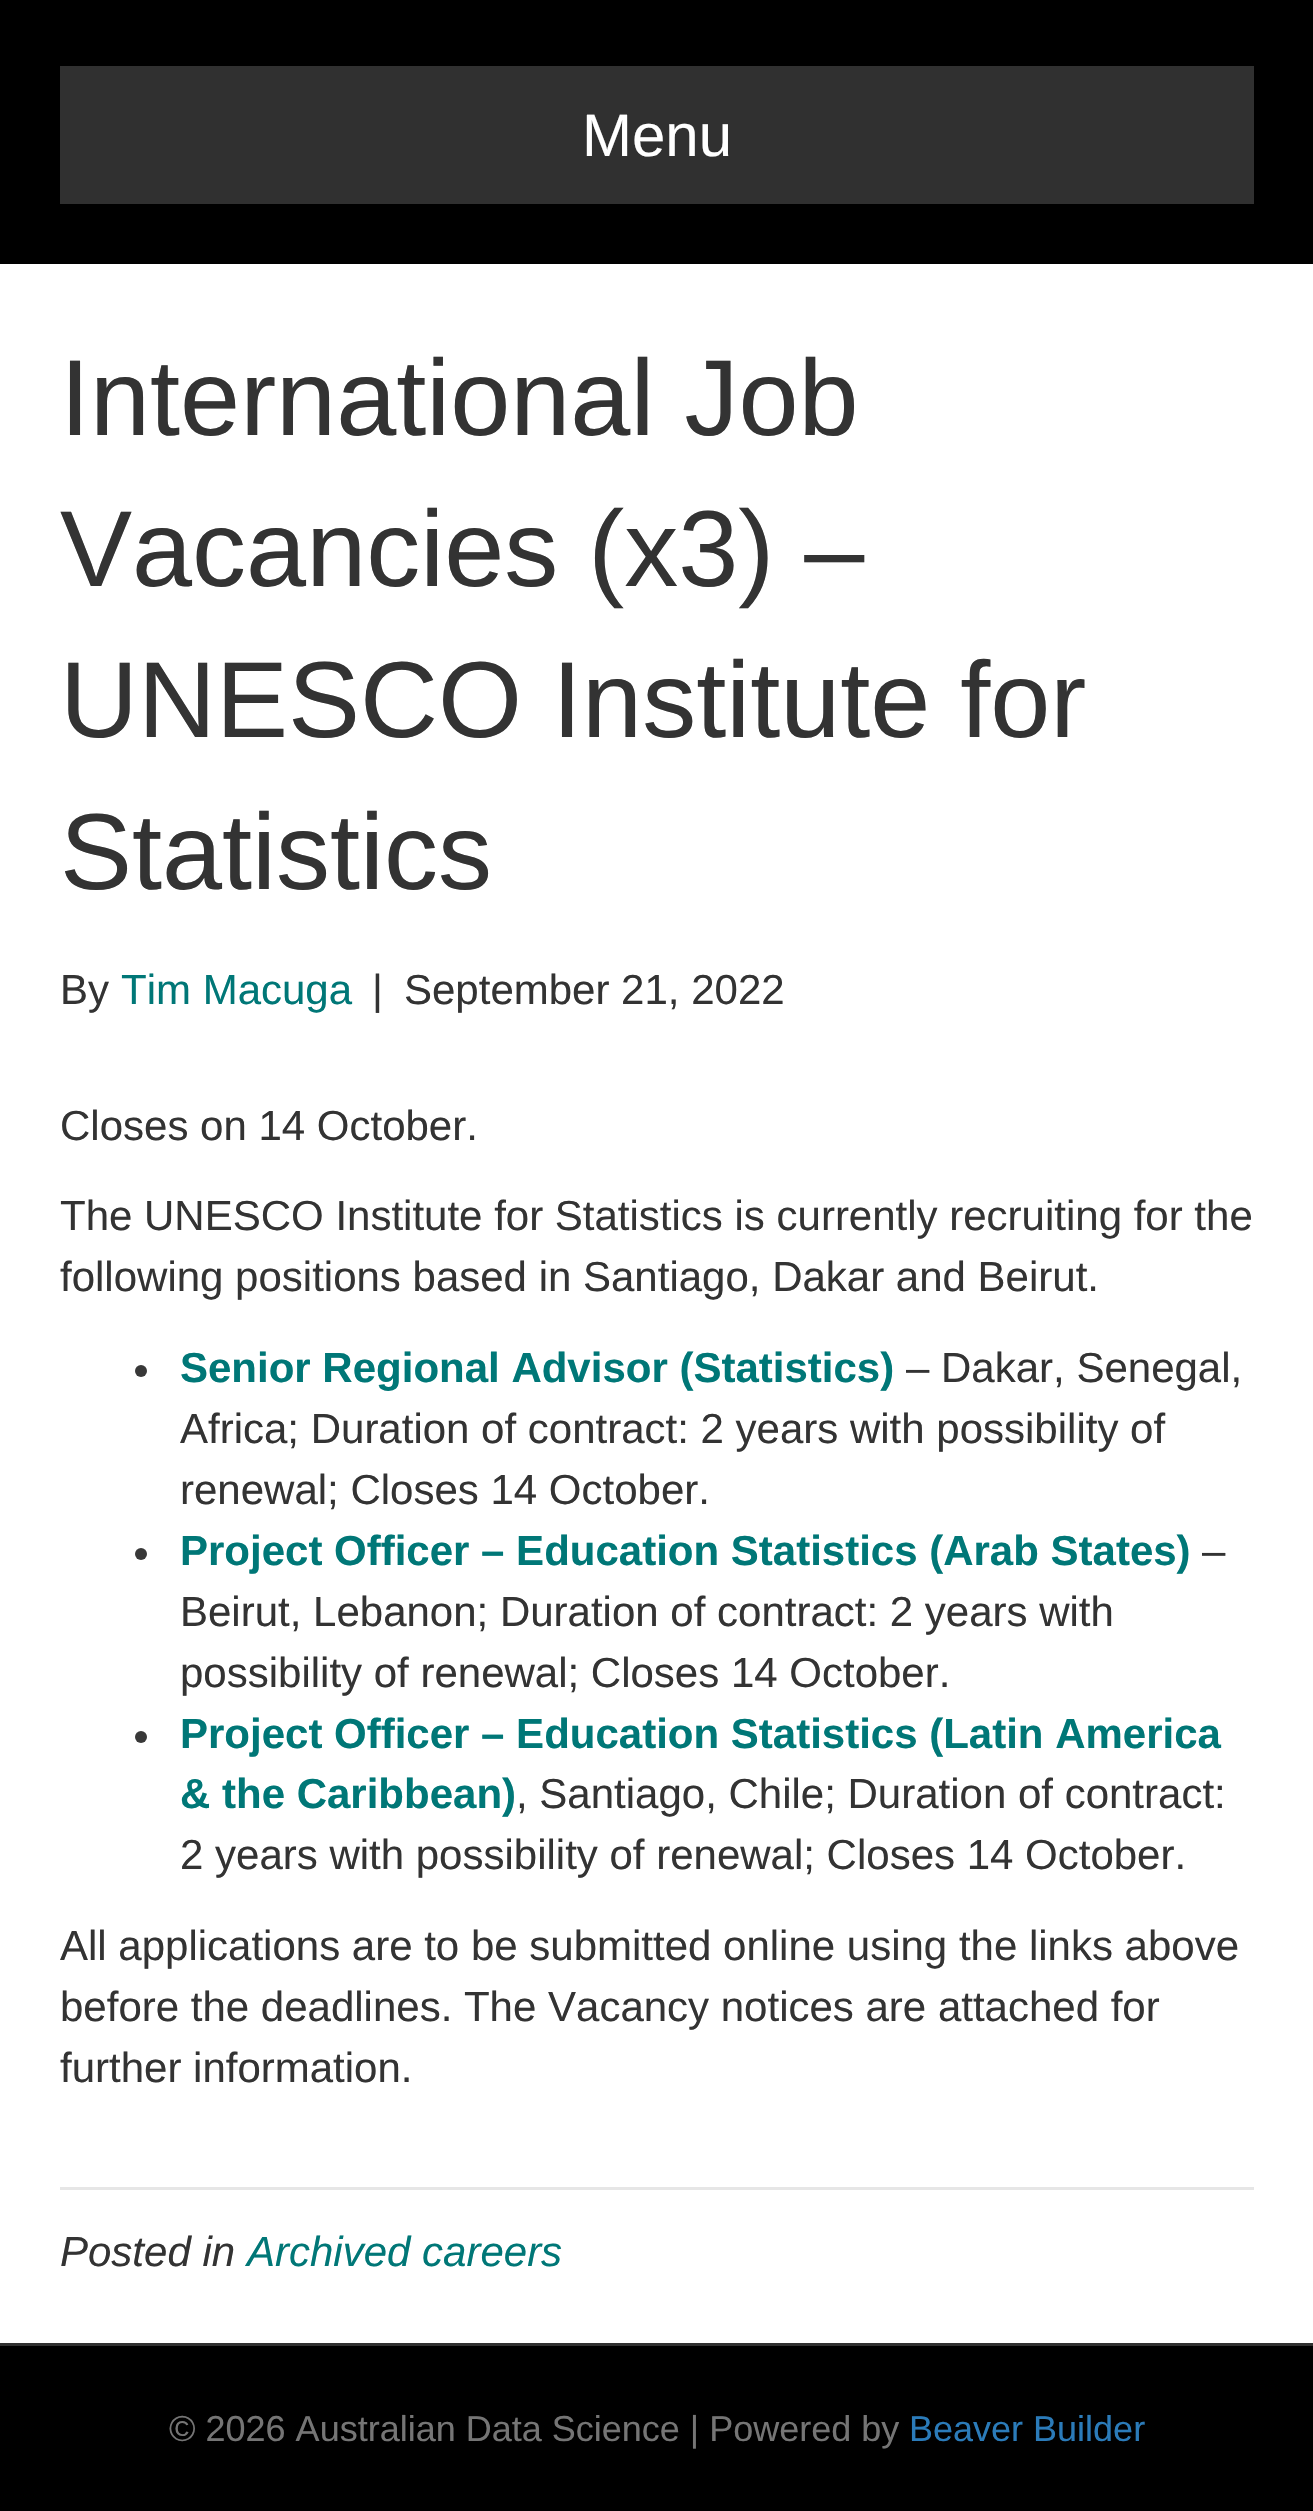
#include "include/core/SkBlurTypes.h"
#include "include/core/SkCanvas.h"
#include "include/core/SkData.h"
#include "include/core/SkFont.h"
#include "include/core/SkFontMgr.h"
#include "include/core/SkImage.h"
#include "include/core/SkMaskFilter.h"
#include "include/core/SkPaint.h"
#include "include/core/SkPathBuilder.h"
#include "include/core/SkTextBlob.h"
#include "include/effects/SkDashPathEffect.h"
#include "include/effects/SkGradientShader.h"
#include "include/utils/SkParsePath.h"

extern sk_sp<SkFontMgr> fontMgr;

void draw(SkCanvas* canvas) {
    SkPaint p;
    p.setAntiAlias(true);
    auto font = [&](const char* family, int weight, float size, bool italic = false) {
        SkFontStyle style(weight, SkFontStyle::kNormal_Width,
            italic ? SkFontStyle::kItalic_Slant : SkFontStyle::kUpright_Slant);
        SkFont result(fontMgr->matchFamilyStyle(family, style), size);
        result.setSubpixel(true);
        return result;
    };
    canvas->clear(0xFF000000);
    p.setColor(0xFF303030);
    canvas->drawRect(SkRect::MakeLTRB(60, 66, 1254, 204), p);
    auto font1 = font("Liberation Sans", 400, 60);
    p.setColor(0xFFFFFFFF);
    canvas->drawString("Menu", 582, 156, font1, p);
    canvas->drawRect(SkRect::MakeLTRB(0, 264, 1313, 2343), p);
    auto font2 = font("Liberation Sans", 400, 108);
    p.setColor(0xFF333333);
    {
        const struct { const char* s; float x, y; } items[] = {
            {"International Job", 60, 435},
            {"Vacancies (x3) –", 60, 586},
            {"UNESCO Institute for", 60, 737},
            {"Statistics", 60, 889},
        };
        for (auto [s, x, y] : items) {
            canvas->drawString(s, x, y, font2, p);
        }
    }
    auto font3 = font("Liberation Sans", 400, 42);
    canvas->drawString("By", 60, 1004, font3, p);
    p.setColor(0xFF007777);
    canvas->drawString("Tim Macuga", 121, 1004, font3, p);
    p.setColor(0xFF333333);
    {
        const struct { const char* s; float x, y; } items[] = {
            {"|", 372, 1004},
            {"September 21, 2022", 404, 1004},
            {"Closes on 14 October.", 60, 1140},
            {"The UNESCO Institute for Statistics is currently recruiting for the", 60, 1230},
            {"following positions based in Santiago, Dakar and Beirut.", 60, 1291},
        };
        for (auto [s, x, y] : items) {
            canvas->drawString(s, x, y, font3, p);
        }
    }
    p.setColor(0xFF383838);
    canvas->drawCircle(141, 1371, 6, p);
    auto font4 = font("Liberation Sans", 700, 42);
    p.setColor(0xFF007777);
    canvas->drawString("Senior Regional Advisor (Statistics)", 180, 1382, font4, p);
    p.setColor(0xFF333333);
    {
        const struct { const char* s; float x, y; } items[] = {
            {"– Dakar, Senegal,", 906, 1382},
            {"Africa; Duration of contract: 2 years with possibility of", 180, 1443},
            {"renewal; Closes 14 October.", 180, 1504},
        };
        for (auto [s, x, y] : items) {
            canvas->drawString(s, x, y, font3, p);
        }
    }
    p.setColor(0xFF383838);
    canvas->drawCircle(141, 1554, 6, p);
    p.setColor(0xFF007777);
    canvas->drawString("Project Officer – Education Statistics (Arab States)", 180, 1565, font4, p);
    p.setColor(0xFF333333);
    {
        const struct { const char* s; float x, y; } items[] = {
            {"–", 1202, 1565},
            {"Beirut, Lebanon; Duration of contract: 2 years with", 180, 1626},
            {"possibility of renewal; Closes 14 October.", 180, 1687},
        };
        for (auto [s, x, y] : items) {
            canvas->drawString(s, x, y, font3, p);
        }
    }
    p.setColor(0xFF383838);
    canvas->drawCircle(141, 1737, 6, p);
    p.setColor(0xFF007777);
    canvas->drawString("Project Officer – Education Statistics (Latin America", 180, 1748, font4, p);
    canvas->drawString("& the Caribbean)", 180, 1808, font4, p);
    p.setColor(0xFF333333);
    {
        const struct { const char* s; float x, y; } items[] = {
            {", Santiago, Chile; Duration of contract:", 516, 1808},
            {"2 years with possibility of renewal; Closes 14 October.", 180, 1869},
            {"All applications are to be submitted online using the links above", 60, 1960},
            {"before the deadlines. The Vacancy notices are attached for", 60, 2021},
            {"further information.", 60, 2082},
        };
        for (auto [s, x, y] : items) {
            canvas->drawString(s, x, y, font3, p);
        }
    }
    p.setColor(0xFFE6E6E6);
    canvas->drawRect(SkRect::MakeLTRB(60, 2187, 1254, 2190), p);
    auto font5 = font("Liberation Sans", 400, 42, true);
    p.setColor(0xFF333333);
    canvas->drawString("Posted in", 60, 2266, font5, p);
    p.setColor(0xFF007777);
    canvas->drawString("Archived careers", 247, 2266, font5, p);
    p.setColor(0xFF303030);
    canvas->drawRect(SkRect::MakeLTRB(0, 2343, 1313, 2346), p);
    auto font6 = font("Liberation Sans", 400, 36);
    p.setColor(0xFF757575);
    canvas->drawString("© 2026 Australian Data Science | Powered by", 169, 2441, font6, p);
    p.setColor(0xFF2B7BB9);
    canvas->drawString("Beaver Builder", 909, 2441, font6, p);
}
